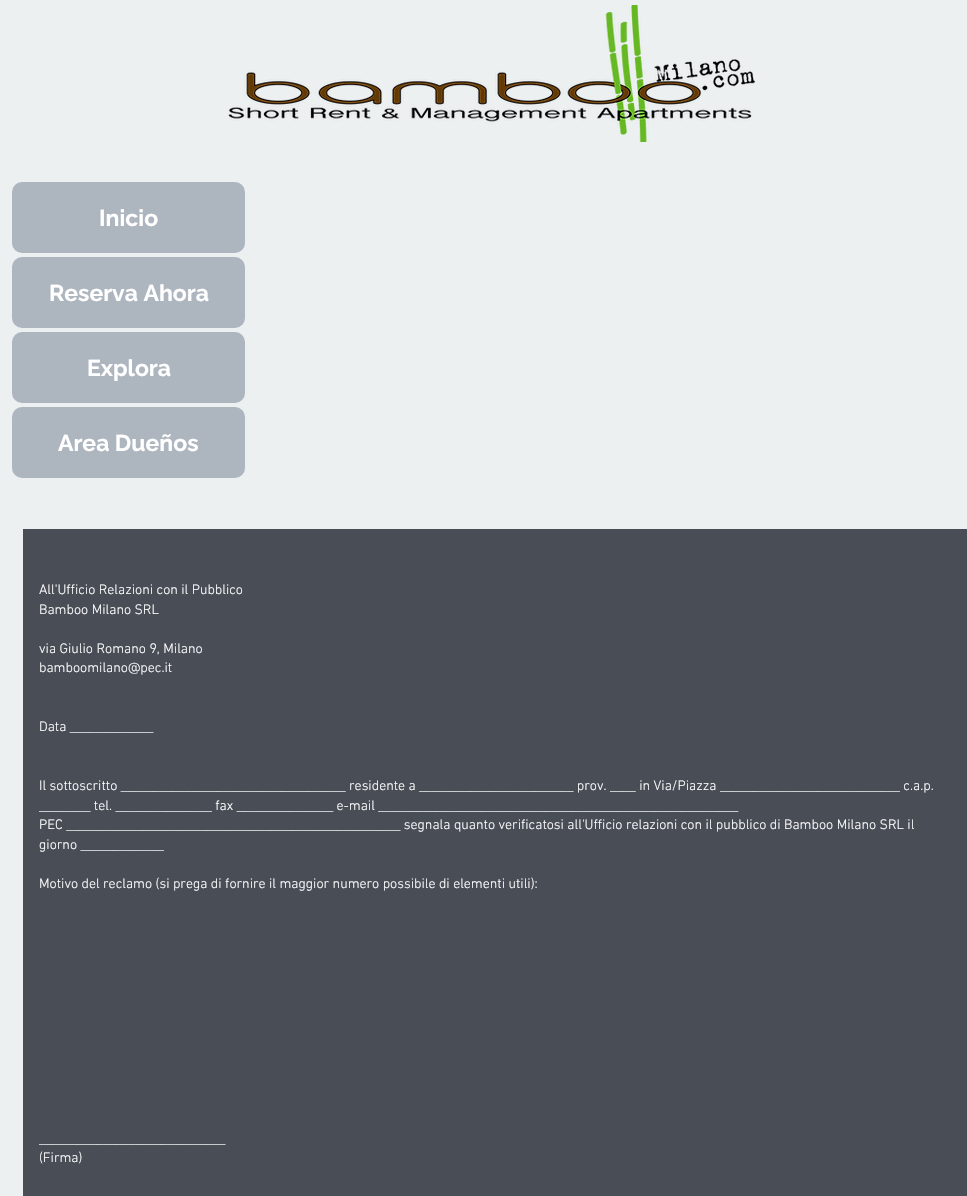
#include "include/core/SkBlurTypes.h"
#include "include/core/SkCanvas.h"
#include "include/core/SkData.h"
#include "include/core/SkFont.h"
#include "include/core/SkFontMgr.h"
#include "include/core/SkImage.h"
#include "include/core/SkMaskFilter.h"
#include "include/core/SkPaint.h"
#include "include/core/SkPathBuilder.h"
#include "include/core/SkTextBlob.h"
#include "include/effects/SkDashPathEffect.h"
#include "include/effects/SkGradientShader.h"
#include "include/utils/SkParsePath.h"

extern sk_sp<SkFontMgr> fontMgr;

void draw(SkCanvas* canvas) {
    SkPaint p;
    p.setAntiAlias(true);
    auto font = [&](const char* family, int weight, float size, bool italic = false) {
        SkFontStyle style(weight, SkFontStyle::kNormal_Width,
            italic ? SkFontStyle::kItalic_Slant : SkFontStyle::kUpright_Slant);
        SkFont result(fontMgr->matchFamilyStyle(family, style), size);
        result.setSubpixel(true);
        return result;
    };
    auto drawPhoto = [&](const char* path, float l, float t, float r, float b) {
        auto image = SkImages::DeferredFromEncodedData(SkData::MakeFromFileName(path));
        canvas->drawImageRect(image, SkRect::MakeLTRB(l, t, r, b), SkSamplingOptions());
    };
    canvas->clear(0xFFECF0F1);
    drawPhoto("media/1.png", 228, 5, 755, 142);
    p.setColor(0xFFADB5BF);
    canvas->drawRoundRect(SkRect::MakeLTRB(12, 182, 245, 253), 10, 10, p);
    auto font1 = font("Raleway", 700, 23);
    p.setColor(0xFFFFFFFF);
    canvas->drawString("Inicio", 99, 226, font1, p);
    p.setColor(0xFFADB5BF);
    canvas->drawRoundRect(SkRect::MakeLTRB(12, 257, 245, 328), 10, 10, p);
    p.setColor(0xFFFFFFFF);
    canvas->drawString("Reserva Ahora", 49, 301, font1, p);
    p.setColor(0xFFADB5BF);
    canvas->drawRoundRect(SkRect::MakeLTRB(12, 332, 245, 403), 10, 10, p);
    p.setColor(0xFFFFFFFF);
    canvas->drawString("Explora", 87, 376, font1, p);
    p.setColor(0xFFADB5BF);
    canvas->drawRoundRect(SkRect::MakeLTRB(12, 407, 245, 478), 10, 10, p);
    p.setColor(0xFFFFFFFF);
    canvas->drawString("Area Dueños", 58, 451, font1, p);
    p.setColor(0xFF484D56);
    canvas->drawRect(SkRect::MakeLTRB(23, 529, 967, 1196), p);
    auto font2 = font("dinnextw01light", 300, 14);
    p.setColor(0xFFFFFFFF);
    {
        const struct { const char* s; float x, y; } items[] = {
            {"All'Ufficio Relazioni con il Pubblico", 39, 594},
            {"Bamboo Milano SRL", 39, 614},
            {"via Giulio Romano 9, Milano", 39, 653},
            {"bamboomilano@pec.it", 39, 672},
            {"Data _____________", 39, 731},
            {"Il sottoscritto ___________________________________ residente a ________________________ prov. ____ in Via/Piazza ____________________________ c.a.p.", 39, 790},
            {"________ tel. _______________ fax _______________ e-mail ________________________________________________________", 39, 810},
            {"PEC ____________________________________________________ segnala quanto verificatosi all'Ufficio relazioni con il pubblico di Bamboo Milano SRL il", 39, 829},
            {"giorno _____________", 39, 849},
            {"Motivo del reclamo (si prega di fornire il maggior numero possibile di elementi utili):", 39, 888},
            {"_____________________________", 39, 1143},
            {"(Firma)", 39, 1162},
        };
        for (auto [s, x, y] : items) {
            canvas->drawString(s, x, y, font2, p);
        }
    }
}
